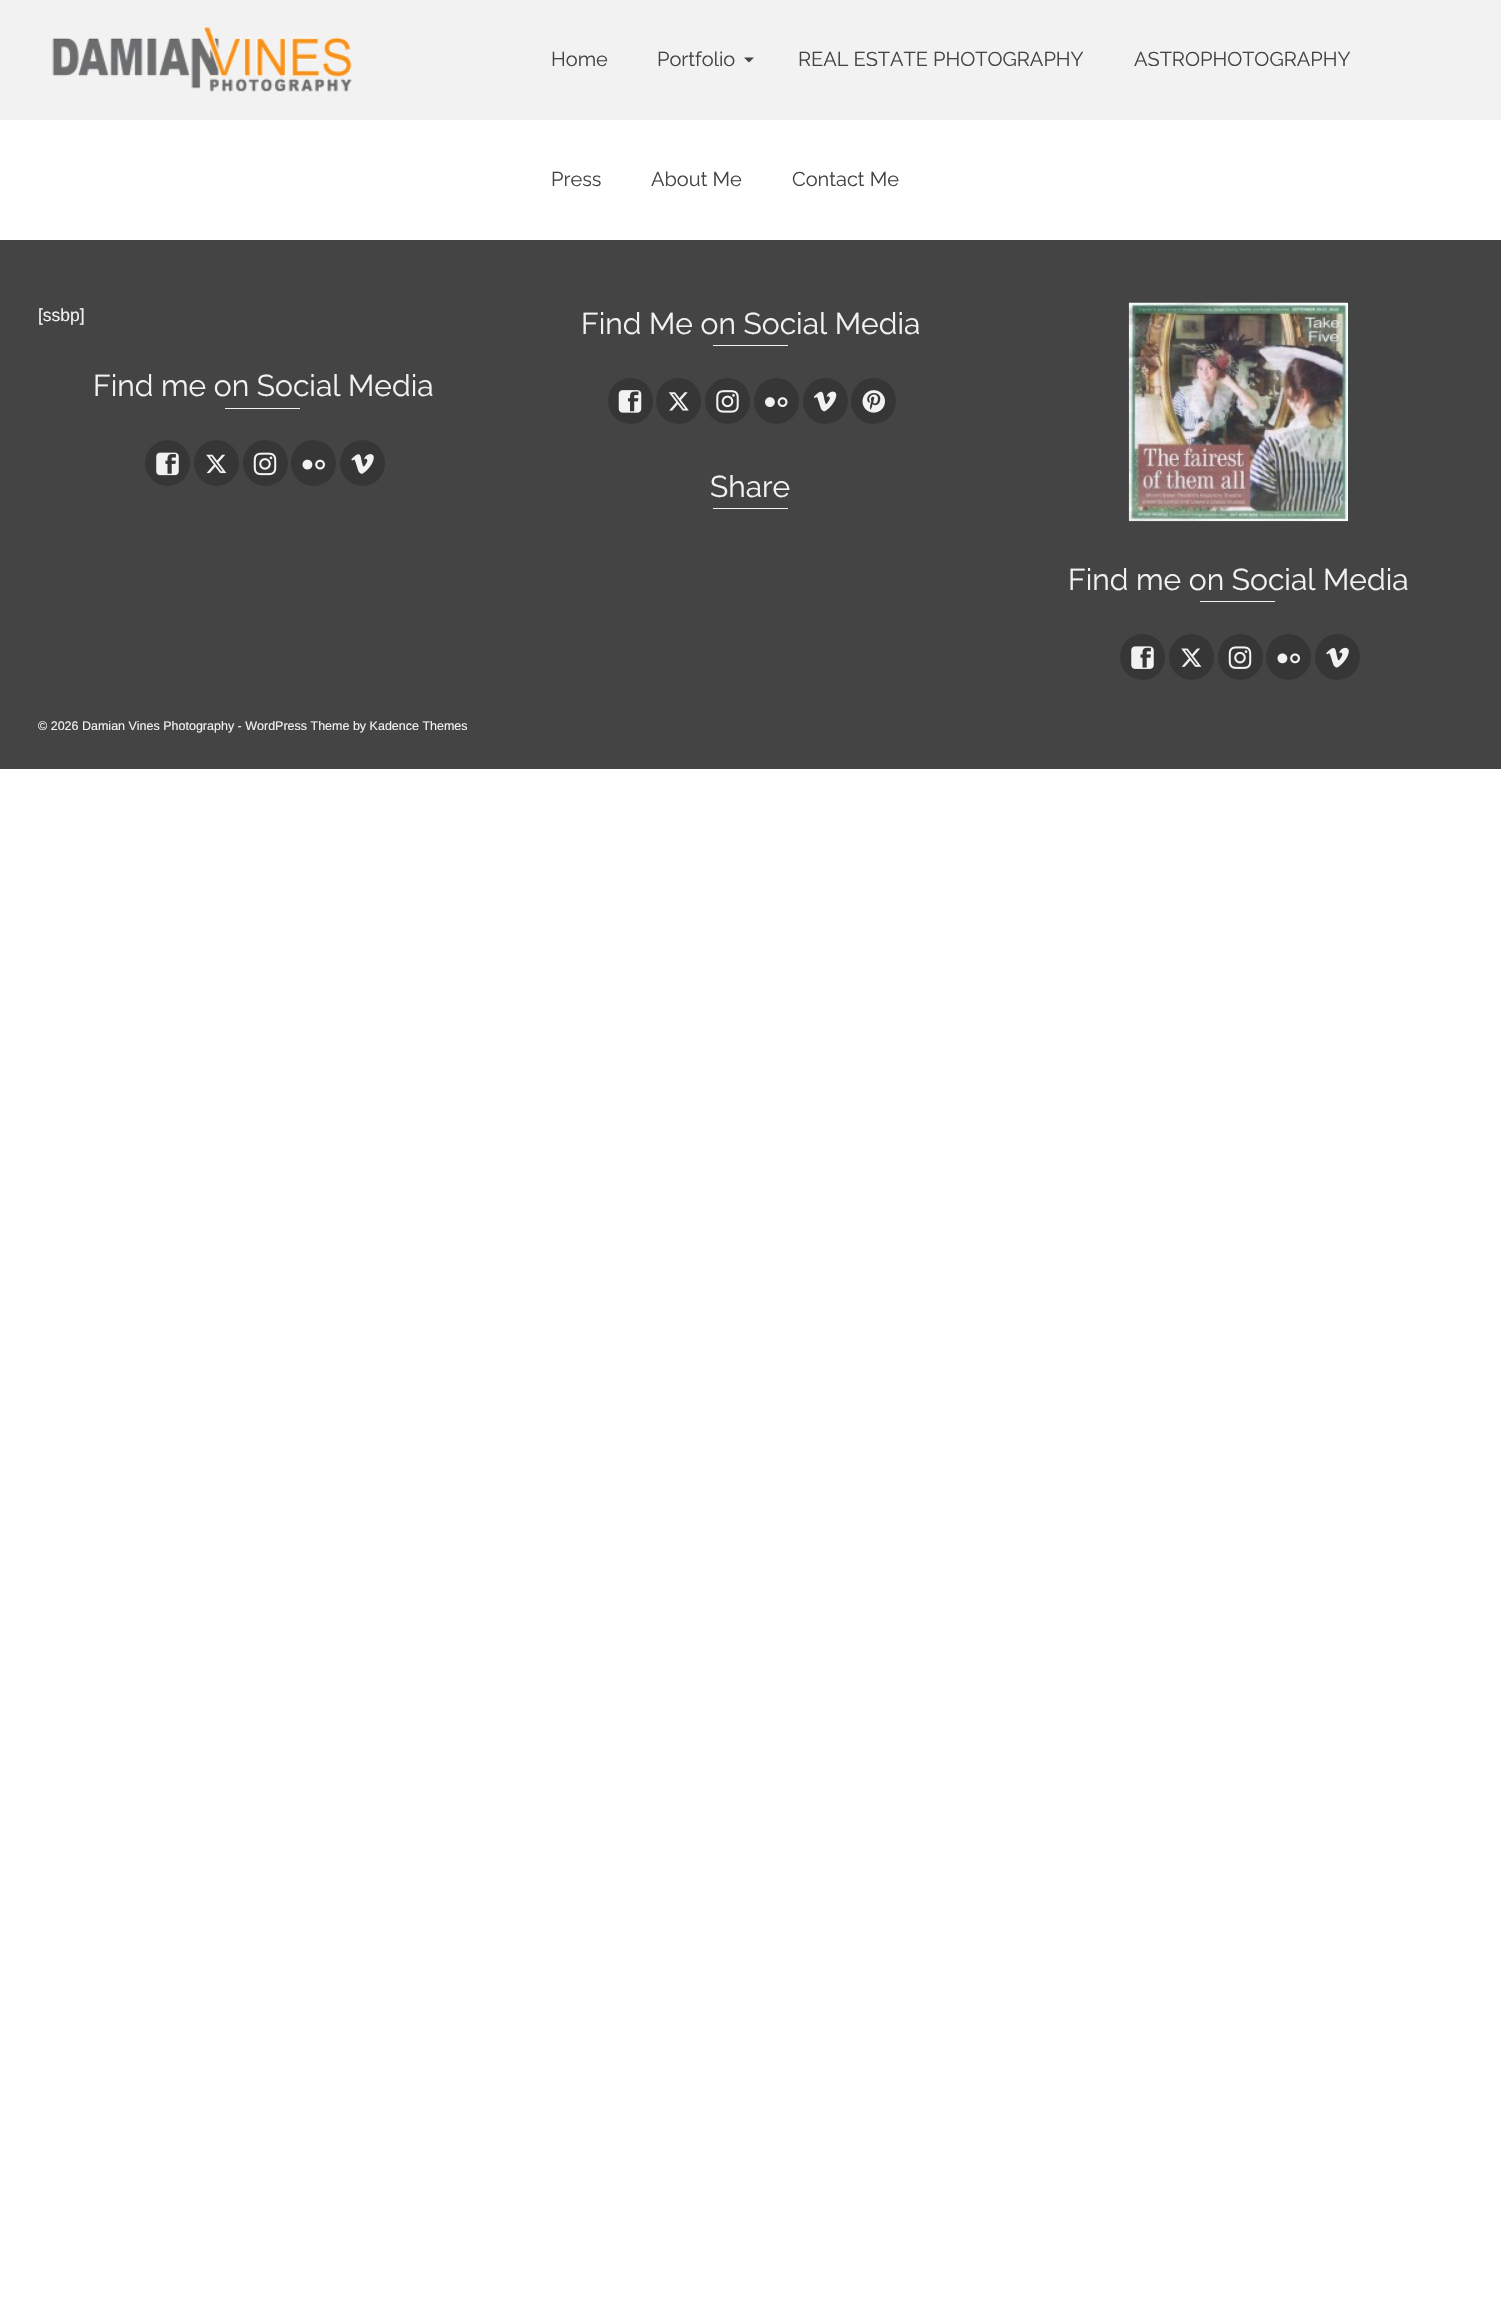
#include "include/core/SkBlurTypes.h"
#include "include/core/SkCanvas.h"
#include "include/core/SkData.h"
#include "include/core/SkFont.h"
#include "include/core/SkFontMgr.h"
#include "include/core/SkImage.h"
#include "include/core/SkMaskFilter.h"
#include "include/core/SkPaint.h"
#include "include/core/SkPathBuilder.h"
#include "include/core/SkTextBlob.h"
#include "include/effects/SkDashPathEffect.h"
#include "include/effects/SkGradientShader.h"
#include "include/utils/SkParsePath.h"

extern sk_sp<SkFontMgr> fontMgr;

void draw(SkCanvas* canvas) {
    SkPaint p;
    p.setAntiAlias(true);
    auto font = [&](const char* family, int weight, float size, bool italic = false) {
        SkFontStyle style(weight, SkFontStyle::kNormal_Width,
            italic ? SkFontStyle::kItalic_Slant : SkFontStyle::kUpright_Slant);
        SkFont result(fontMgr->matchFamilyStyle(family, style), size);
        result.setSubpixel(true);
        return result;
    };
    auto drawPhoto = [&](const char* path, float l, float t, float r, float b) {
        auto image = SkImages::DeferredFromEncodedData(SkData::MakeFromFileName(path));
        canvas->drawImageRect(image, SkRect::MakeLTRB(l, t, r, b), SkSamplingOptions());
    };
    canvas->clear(0xFFFFFFFF);
    p.setColor(0xFFF2F2F2);
    canvas->drawRect(SkRect::MakeLTRB(0, 0, 1501, 120), p);
    drawPhoto("media/1.png", 52, 26, 353, 93);
    auto font1 = font("Raleway", 400, 20);
    p.setColor(0xFF444444);
    canvas->drawString("Home", 551, 66, font1, p);
    canvas->drawString("Portfolio", 657, 66, font1, p);
    canvas->drawPath(SkPathBuilder().moveTo(744, 57.5f).lineTo(749, 62.5f).lineTo(754, 57.5f).close().detach(), p);
    {
        const struct { const char* s; float x, y; } items[] = {
            {"REAL ESTATE PHOTOGRAPHY", 798, 66},
            {"ASTROPHOTOGRAPHY", 1134, 66},
            {"Press", 551, 186},
            {"About Me", 651, 186},
            {"Contact Me", 792, 186},
        };
        for (auto [s, x, y] : items) {
            canvas->drawString(s, x, y, font1, p);
        }
    }
    canvas->drawRect(SkRect::MakeLTRB(0, 240, 1501, 769), p);
    auto font2 = font("Liberation Sans", 400, 17.5f);
    p.setColor(0xFFF2F2F2);
    canvas->drawString("[ssbp]", 38, 321, font2, p);
    auto font3 = font("Raleway", 400, 30);
    canvas->drawString("Find me on Social Media", 93, 396, font3, p);
    canvas->drawRect(SkRect::MakeLTRB(225, 408, 300, 409), p);
    p.setColor(0xFF363636);
    canvas->drawRoundRect(SkRect::MakeLTRB(145, 440, 190, 486), 22.5f, 22.5f, p);
    drawPhoto("media/2.png", 156, 452, 179, 476);
    canvas->drawRoundRect(SkRect::MakeLTRB(194, 440, 239, 486), 22.5f, 22.5f, p);
    drawPhoto("media/3.png", 206, 454, 227, 474);
    canvas->drawRoundRect(SkRect::MakeLTRB(243, 440, 288, 486), 22.5f, 22.5f, p);
    drawPhoto("media/4.png", 253, 452, 277, 476);
    canvas->drawRoundRect(SkRect::MakeLTRB(291, 440, 336, 486), 22.5f, 22.5f, p);
    drawPhoto("media/5.png", 302, 459, 325, 470);
    canvas->drawRoundRect(SkRect::MakeLTRB(340, 440, 385, 486), 22.5f, 22.5f, p);
    drawPhoto("media/6.png", 351, 454, 374, 474);
    p.setColor(0xFFF2F2F2);
    canvas->drawString("Find Me on Social Media", 581, 334, font3, p);
    canvas->drawRect(SkRect::MakeLTRB(713, 345, 788, 346), p);
    p.setColor(0xFF363636);
    canvas->drawRoundRect(SkRect::MakeLTRB(608, 378, 653, 424), 22.5f, 22.5f, p);
    drawPhoto("media/7.png", 618, 390, 642, 413);
    canvas->drawRoundRect(SkRect::MakeLTRB(656, 378, 701, 424), 22.5f, 22.5f, p);
    drawPhoto("media/8.png", 668, 392, 689, 411);
    canvas->drawRoundRect(SkRect::MakeLTRB(705, 378, 750, 424), 22.5f, 22.5f, p);
    drawPhoto("media/9.png", 716, 390, 739, 413);
    canvas->drawRoundRect(SkRect::MakeLTRB(754, 378, 799, 424), 22.5f, 22.5f, p);
    drawPhoto("media/10.png", 765, 397, 788, 407);
    canvas->drawRoundRect(SkRect::MakeLTRB(803, 378, 848, 424), 22.5f, 22.5f, p);
    drawPhoto("media/11.png", 813, 391, 837, 412);
    canvas->drawRoundRect(SkRect::MakeLTRB(851, 378, 896, 424), 22.5f, 22.5f, p);
    drawPhoto("media/12.png", 862, 390, 885, 413);
    p.setColor(0xFFF2F2F2);
    canvas->drawString("Share", 710, 497, font3, p);
    canvas->drawRect(SkRect::MakeLTRB(713, 508, 788, 509), p);
    p.setColor(0xFFFFFFFF);
    canvas->drawRect(SkRect::MakeLTRB(1347, 303, 1348, 521), p);
    drawPhoto("media/13.png", 1128, 302, 1348, 522);
    p.setColor(0xFFF2F2F2);
    canvas->drawString("Find me on Social Media", 1068, 590, font3, p);
    canvas->drawRect(SkRect::MakeLTRB(1200, 601, 1275, 602), p);
    p.setColor(0xFF363636);
    canvas->drawRoundRect(SkRect::MakeLTRB(1120, 634, 1165, 680), 22.5f, 22.5f, p);
    drawPhoto("media/14.png", 1131, 646, 1154, 669);
    canvas->drawRoundRect(SkRect::MakeLTRB(1169, 634, 1214, 680), 22.5f, 22.5f, p);
    drawPhoto("media/15.png", 1181, 648, 1202, 667);
    canvas->drawRoundRect(SkRect::MakeLTRB(1218, 634, 1263, 680), 22.5f, 22.5f, p);
    drawPhoto("media/16.png", 1228, 646, 1252, 669);
    canvas->drawRoundRect(SkRect::MakeLTRB(1266, 634, 1311, 680), 22.5f, 22.5f, p);
    drawPhoto("media/17.png", 1277, 653, 1300, 664);
    canvas->drawRoundRect(SkRect::MakeLTRB(1315, 634, 1360, 680), 22.5f, 22.5f, p);
    drawPhoto("media/18.png", 1326, 647, 1349, 668);
    auto font4 = font("Liberation Sans", 400, 12.5f);
    p.setColor(0xFFF2F2F2);
    canvas->drawString("© 2026 Damian Vines Photography - WordPress Theme by Kadence Themes", 38, 730, font4, p);
}
